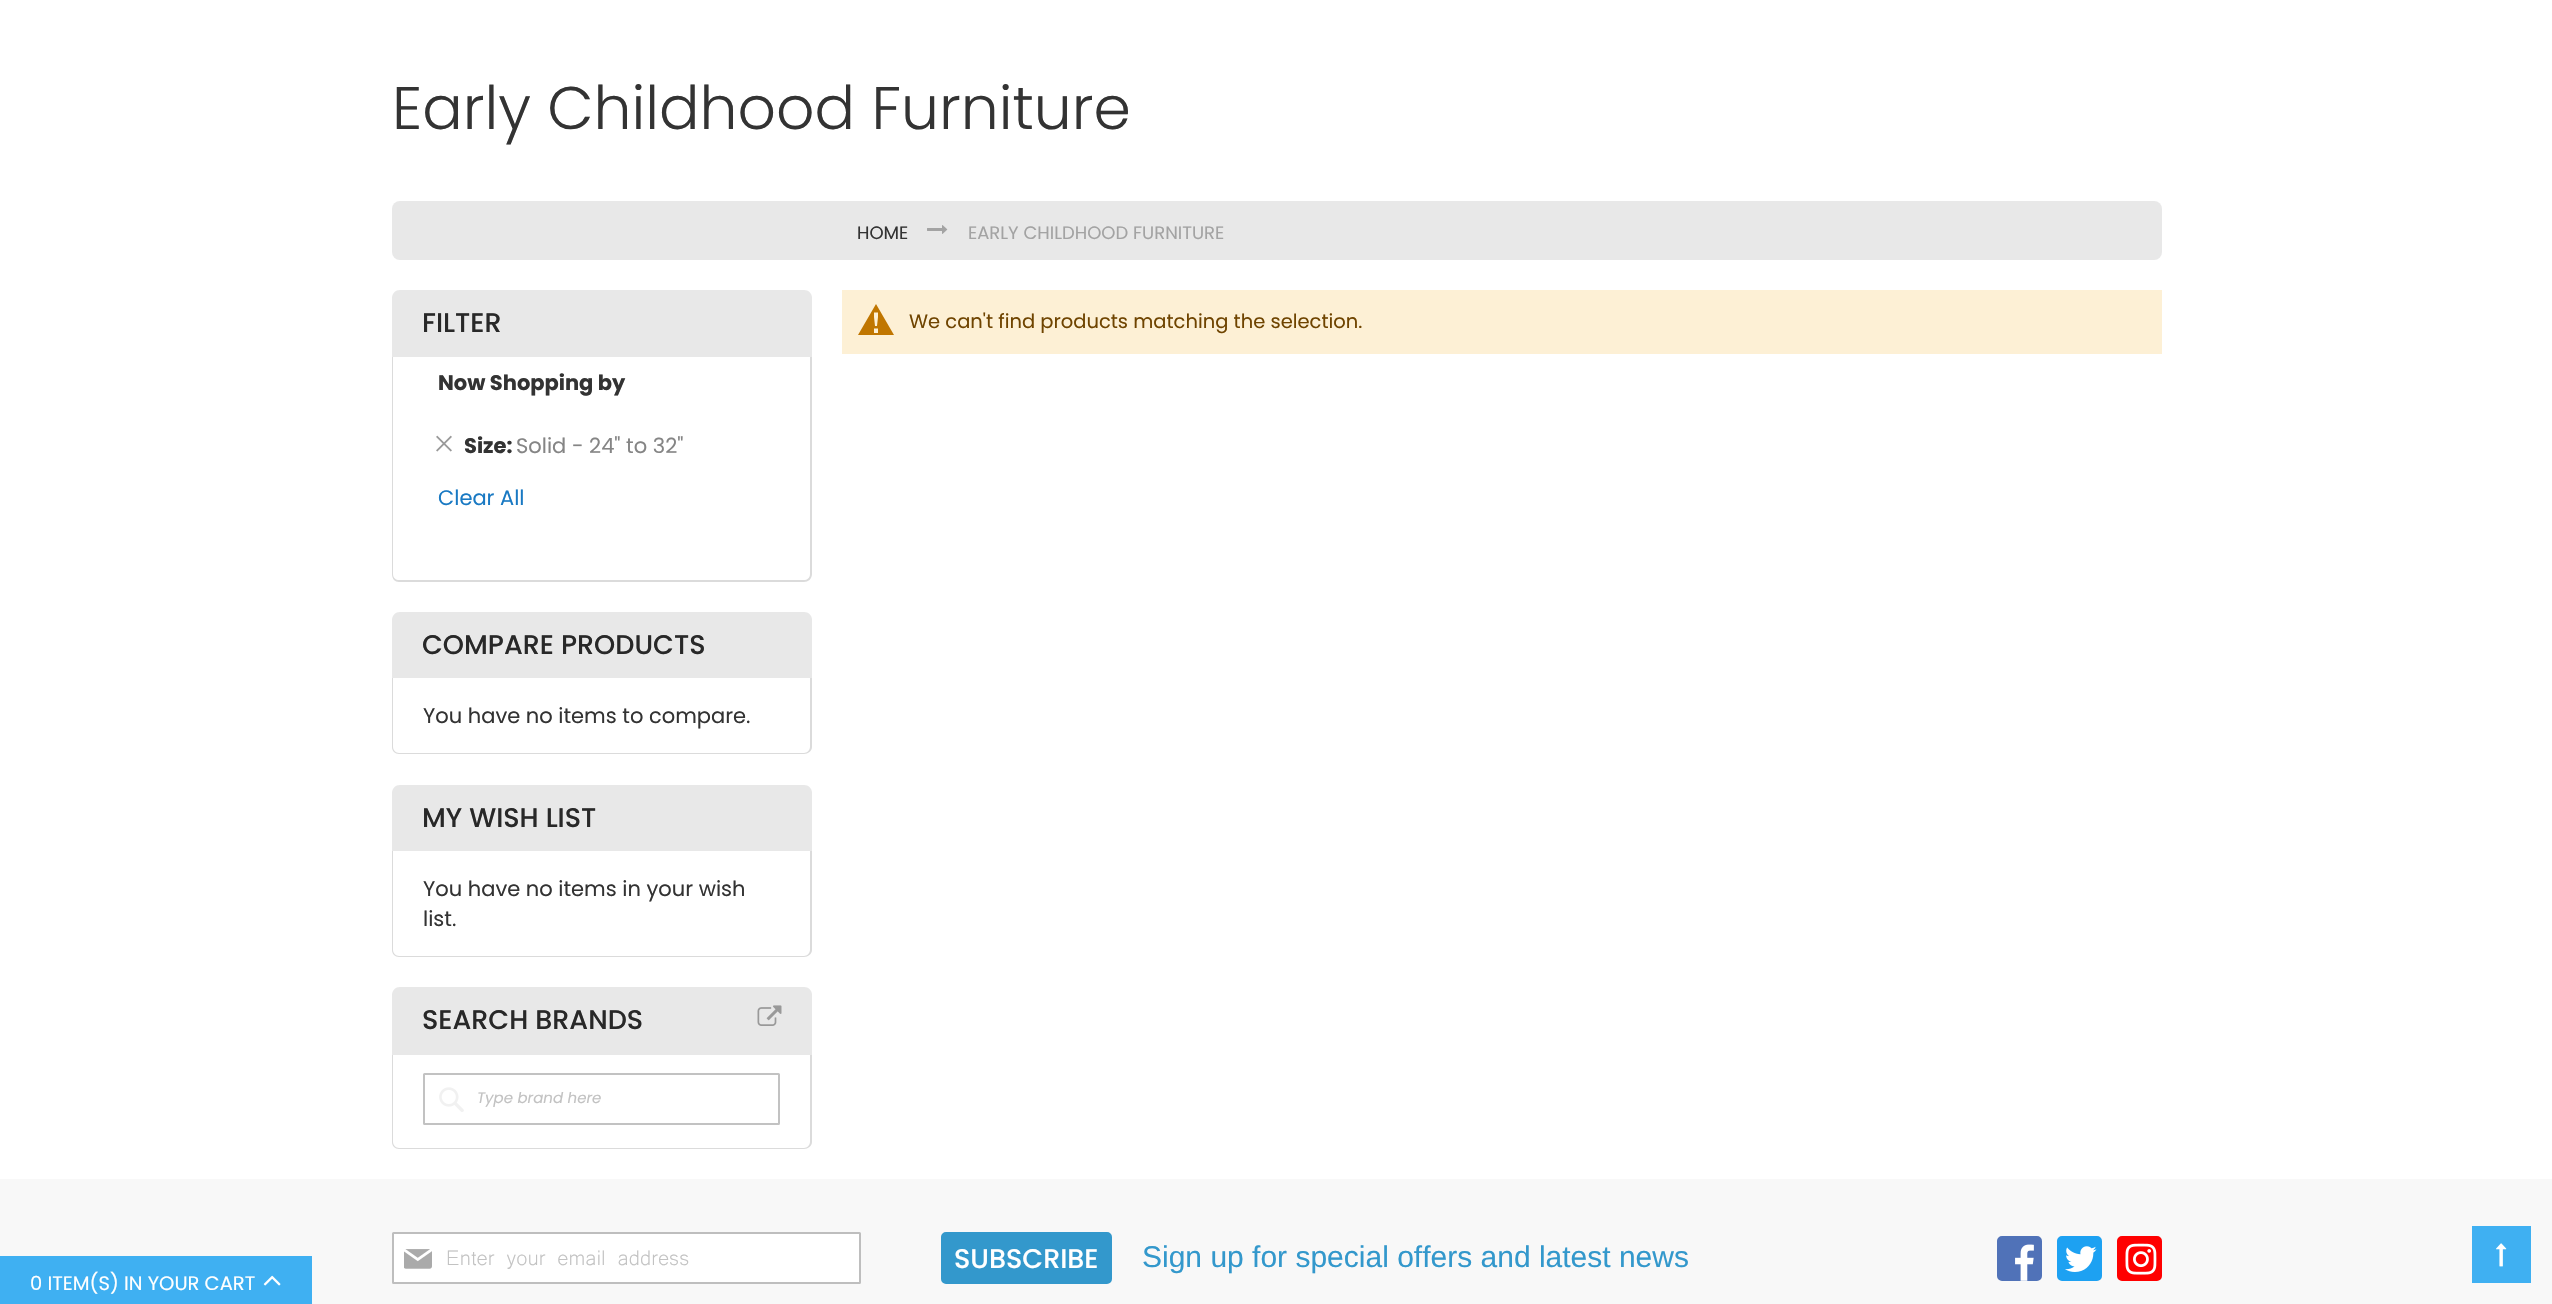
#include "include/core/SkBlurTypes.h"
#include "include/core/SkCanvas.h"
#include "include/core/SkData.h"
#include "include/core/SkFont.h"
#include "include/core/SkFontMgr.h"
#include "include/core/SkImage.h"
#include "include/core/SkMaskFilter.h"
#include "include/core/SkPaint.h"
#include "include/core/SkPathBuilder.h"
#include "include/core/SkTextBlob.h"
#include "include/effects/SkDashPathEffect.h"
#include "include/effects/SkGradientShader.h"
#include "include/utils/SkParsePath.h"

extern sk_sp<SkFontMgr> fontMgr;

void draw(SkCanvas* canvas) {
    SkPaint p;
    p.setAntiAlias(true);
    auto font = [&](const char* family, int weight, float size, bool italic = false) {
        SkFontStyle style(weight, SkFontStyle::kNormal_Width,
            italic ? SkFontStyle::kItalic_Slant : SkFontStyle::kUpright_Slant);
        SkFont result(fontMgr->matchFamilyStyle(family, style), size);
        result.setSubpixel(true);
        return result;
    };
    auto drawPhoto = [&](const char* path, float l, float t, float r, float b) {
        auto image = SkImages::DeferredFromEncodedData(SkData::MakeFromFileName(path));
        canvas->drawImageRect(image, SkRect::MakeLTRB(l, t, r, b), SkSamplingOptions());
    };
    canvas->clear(0xFFFFFFFF);
    auto font1 = font("Poppins", 300, 60);
    p.setColor(0xFF333333);
    canvas->drawString("Early Childhood Furniture", 392, 129, font1, p);
    p.setColor(0xFFE8E8E8);
    canvas->drawRoundRect(SkRect::MakeLTRB(392, 201, 2162, 260), 8, 8, p);
    auto font2 = font("Poppins", 400, 18);
    p.setColor(0xFF333333);
    canvas->drawString("HOME", 857, 239, font2, p);
    drawPhoto("media/1.png", 927, 225, 948, 234);
    p.setColor(0xFFA3A3A3);
    canvas->drawString("EARLY CHILDHOOD FURNITURE", 968, 239, font2, p);
    p.setColor(0xFFE8E8E8);
    canvas->drawPath(SkPathBuilder().moveTo(400, 290).lineTo(804, 290).cubicTo(808.5f, 290, 812, 293.5f, 812, 298).lineTo(812, 357).lineTo(392, 357).lineTo(392, 298).cubicTo(392, 293.5f, 395.5f, 290, 400, 290).close().detach(), p);
    auto font3 = font("Poppins", 500, 27);
    p.setColor(0xFF282828);
    canvas->drawString("FILTER", 422, 332, font3, p);
    p.setColor(0xFFDBDBDB);
    canvas->drawPath(SkPathBuilder(SkPathFillType::kEvenOdd).moveTo(392, 357).lineTo(812, 357).lineTo(812, 574).cubicTo(812, 579, 808, 582, 804, 582).lineTo(399, 582).cubicTo(395, 582, 392, 579, 392, 574).close().moveTo(393, 357).lineTo(810, 357).lineTo(810, 574).cubicTo(810, 578, 807, 580, 804, 580).lineTo(399, 580).cubicTo(396, 580, 393, 578, 393, 574).close().detach(), p);
    auto font4 = font("Poppins", 700, 21);
    p.setColor(0xFF333333);
    canvas->drawString("Now Shopping by", 438, 390, font4, p);
    drawPhoto("media/2.png", 436, 435, 452, 452);
    canvas->drawString("Size:", 464, 453, font4, p);
    auto font5 = font("Poppins", 400, 21);
    p.setColor(0xFF858585);
    canvas->drawString("Solid - 24\" to 32\"", 516, 453, font5, p);
    p.setColor(0xFF1979C3);
    canvas->drawString("Clear All", 438, 505, font5, p);
    p.setColor(0xFFFDF0D5);
    canvas->drawRect(SkRect::MakeLTRB(842, 290, 2162, 354), p);
    p.setColor(0xFFC07600);
    canvas->drawPath(SkPathBuilder().moveTo(876, 304).lineTo(858, 335).lineTo(894, 335).close().moveTo(878, 312.5f).lineTo(878, 317).lineTo(877, 326).lineTo(875, 326).lineTo(874, 317).lineTo(874, 312.5f).close().moveTo(874, 333).lineTo(874, 328.5f).lineTo(878, 328.5f).lineTo(878, 333).close().detach(), p);
    auto font6 = font("Poppins", 400, 19.5f);
    p.setColor(0xFF6F4400);
    canvas->drawString("We can't find products matching the selection.", 909, 328, font6, p);
    p.setColor(0xFFE8E8E8);
    canvas->drawPath(SkPathBuilder().moveTo(400, 612).lineTo(804, 612).cubicTo(808.5f, 612, 812, 615.5f, 812, 620).lineTo(812, 678).lineTo(392, 678).lineTo(392, 620).cubicTo(392, 615.5f, 395.5f, 612, 400, 612).close().detach(), p);
    p.setColor(0xFF282828);
    canvas->drawString("COMPARE PRODUCTS", 422, 654, font3, p);
    p.setColor(0xFFDBDBDB);
    canvas->drawPath(SkPathBuilder(SkPathFillType::kEvenOdd).moveTo(392, 678).lineTo(812, 678).lineTo(812, 747).cubicTo(812, 751, 808, 754, 804, 754).lineTo(399, 754).cubicTo(395, 754, 392, 751, 392, 747).close().moveTo(393, 678).lineTo(810, 678).lineTo(810, 747).cubicTo(810, 750, 807, 753, 804, 753).lineTo(399, 753).cubicTo(396, 753, 393, 750, 393, 747).close().detach(), p);
    p.setColor(0xFF333333);
    canvas->drawString("You have no items to compare.", 423, 723, font5, p);
    p.setColor(0xFFDBDBDB);
    canvas->drawPath(SkPathBuilder(SkPathFillType::kEvenOdd).moveTo(392, 850).lineTo(812, 850).lineTo(812, 950).cubicTo(812, 954, 808, 957, 804, 957).lineTo(399, 957).cubicTo(395, 957, 392, 954, 392, 950).close().moveTo(393, 850).lineTo(810, 850).lineTo(810, 950).cubicTo(810, 953, 807, 956, 804, 956).lineTo(399, 956).cubicTo(396, 956, 393, 953, 393, 950).close().detach(), p);
    p.setColor(0xFFE8E8E8);
    canvas->drawPath(SkPathBuilder().moveTo(400, 785).lineTo(804, 785).cubicTo(808.5f, 785, 812, 788.5f, 812, 793).lineTo(812, 851).lineTo(392, 851).lineTo(392, 793).cubicTo(392, 788.5f, 395.5f, 785, 400, 785).close().detach(), p);
    p.setColor(0xFF282828);
    canvas->drawString("MY WISH LIST", 422, 827, font3, p);
    p.setColor(0xFF333333);
    canvas->drawString("You have no items in your wish", 423, 896, font5, p);
    canvas->drawString("list.", 423, 926, font5, p);
    p.setColor(0xFFDBDBDB);
    canvas->drawPath(SkPathBuilder(SkPathFillType::kEvenOdd).moveTo(392, 1054).lineTo(812, 1054).lineTo(812, 1142).cubicTo(812, 1146, 808, 1149, 804, 1149).lineTo(399, 1149).cubicTo(395, 1149, 392, 1146, 392, 1142).close().moveTo(393, 1054).lineTo(810, 1054).lineTo(810, 1142).cubicTo(810, 1145, 807, 1148, 804, 1148).lineTo(399, 1148).cubicTo(396, 1148, 393, 1145, 393, 1142).close().detach(), p);
    p.setColor(0xFFE8E8E8);
    canvas->drawPath(SkPathBuilder().moveTo(400, 987).lineTo(804, 987).cubicTo(808.5f, 987, 812, 990.5f, 812, 995).lineTo(812, 1055).lineTo(392, 1055).lineTo(392, 995).cubicTo(392, 990.5f, 395.5f, 987, 400, 987).close().detach(), p);
    p.setColor(0xFF282828);
    canvas->drawString("SEARCH BRANDS", 422, 1029, font3, p);
    drawPhoto("media/3.png", 757, 1005, 782, 1026);
    p.setStyle(SkPaint::kStroke_Style);
    p.setStrokeWidth(2);
    p.setColor(0xFFC2C2C2);
    canvas->drawRoundRect(SkRect::MakeLTRB(424, 1074, 779, 1124), 0.5f, 0.5f, p);
    drawPhoto("media/4.png", 439, 1087, 464, 1112);
    auto font7 = font("Poppins", 400, 15, true);
    p.setStyle(SkPaint::kFill_Style);
    canvas->drawString("Type brand here", 477, 1103, font7, p);
    p.setColor(0xFFF8F8F8);
    canvas->drawRect(SkRect::MakeLTRB(0, 1179, 2552, 1304), p);
    p.setColor(0xFFFFFFFF);
    canvas->drawRoundRect(SkRect::MakeLTRB(393, 1233, 860, 1283), 0.5f, 0.5f, p);
    p.setStyle(SkPaint::kStroke_Style);
    p.setColor(0xFFBEBEBE);
    canvas->drawRoundRect(SkRect::MakeLTRB(393, 1233, 860, 1283), 0.5f, 0.5f, p);
    drawPhoto("media/5.png", 404, 1249, 432, 1269);
    auto font8 = font("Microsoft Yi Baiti", 400, 27);
    p.setStyle(SkPaint::kFill_Style);
    p.setColor(0xFFC2C2C2);
    canvas->drawString("Enter your email address", 446, 1265, font8, p);
    p.setColor(0xFF3398CC);
    canvas->drawRoundRect(SkRect::MakeLTRB(942, 1233, 1111, 1283), 4, 4, p);
    p.setStyle(SkPaint::kStroke_Style);
    canvas->drawRoundRect(SkRect::MakeLTRB(942, 1233, 1111, 1283), 4, 4, p);
    p.setStyle(SkPaint::kFill_Style);
    p.setColor(0xFFFFFFFF);
    canvas->drawString("SUBSCRIBE", 954, 1268, font3, p);
    auto font9 = font("Liberation Sans", 400, 30);
    p.setColor(0xFF3398CC);
    canvas->drawString("Sign up for special offers and latest news", 1142, 1267, font9, p);
    p.setColor(0xFF5072B8);
    canvas->drawRoundRect(SkRect::MakeLTRB(1998, 1237, 2041, 1280), 4, 4, p);
    p.setStyle(SkPaint::kStroke_Style);
    canvas->drawRoundRect(SkRect::MakeLTRB(1998, 1237, 2041, 1280), 4, 4, p);
    drawPhoto("media/6.png", 2015, 1244, 2034, 1281);
    p.setStyle(SkPaint::kFill_Style);
    p.setColor(0xFF1DA1F2);
    canvas->drawRoundRect(SkRect::MakeLTRB(2058, 1237, 2101, 1280), 4, 4, p);
    p.setStyle(SkPaint::kStroke_Style);
    canvas->drawRoundRect(SkRect::MakeLTRB(2058, 1237, 2101, 1280), 4, 4, p);
    drawPhoto("media/7.png", 2065, 1246, 2097, 1272);
    p.setStyle(SkPaint::kFill_Style);
    p.setColor(0xFFFF0000);
    canvas->drawRoundRect(SkRect::MakeLTRB(2118, 1237, 2161, 1280), 4, 4, p);
    p.setStyle(SkPaint::kStroke_Style);
    canvas->drawRoundRect(SkRect::MakeLTRB(2118, 1237, 2161, 1280), 4, 4, p);
    drawPhoto("media/8.png", 2125, 1243, 2157, 1275);
    p.setStyle(SkPaint::kFill_Style);
    p.setColor(0xFF3FB0F2);
    canvas->drawRect(SkRect::MakeLTRB(2472, 1226, 2531, 1283), p);
    drawPhoto("media/9.png", 2496, 1243, 2507, 1267);
    canvas->drawRect(SkRect::MakeLTRB(0, 1256, 312, 1304), p);
    p.setColor(0xFFFFFFFF);
    canvas->drawString("0 ITEM(S) IN YOUR CART", 30, 1290, font6, p);
    drawPhoto("media/10.png", 263, 1275, 281, 1286);
}
